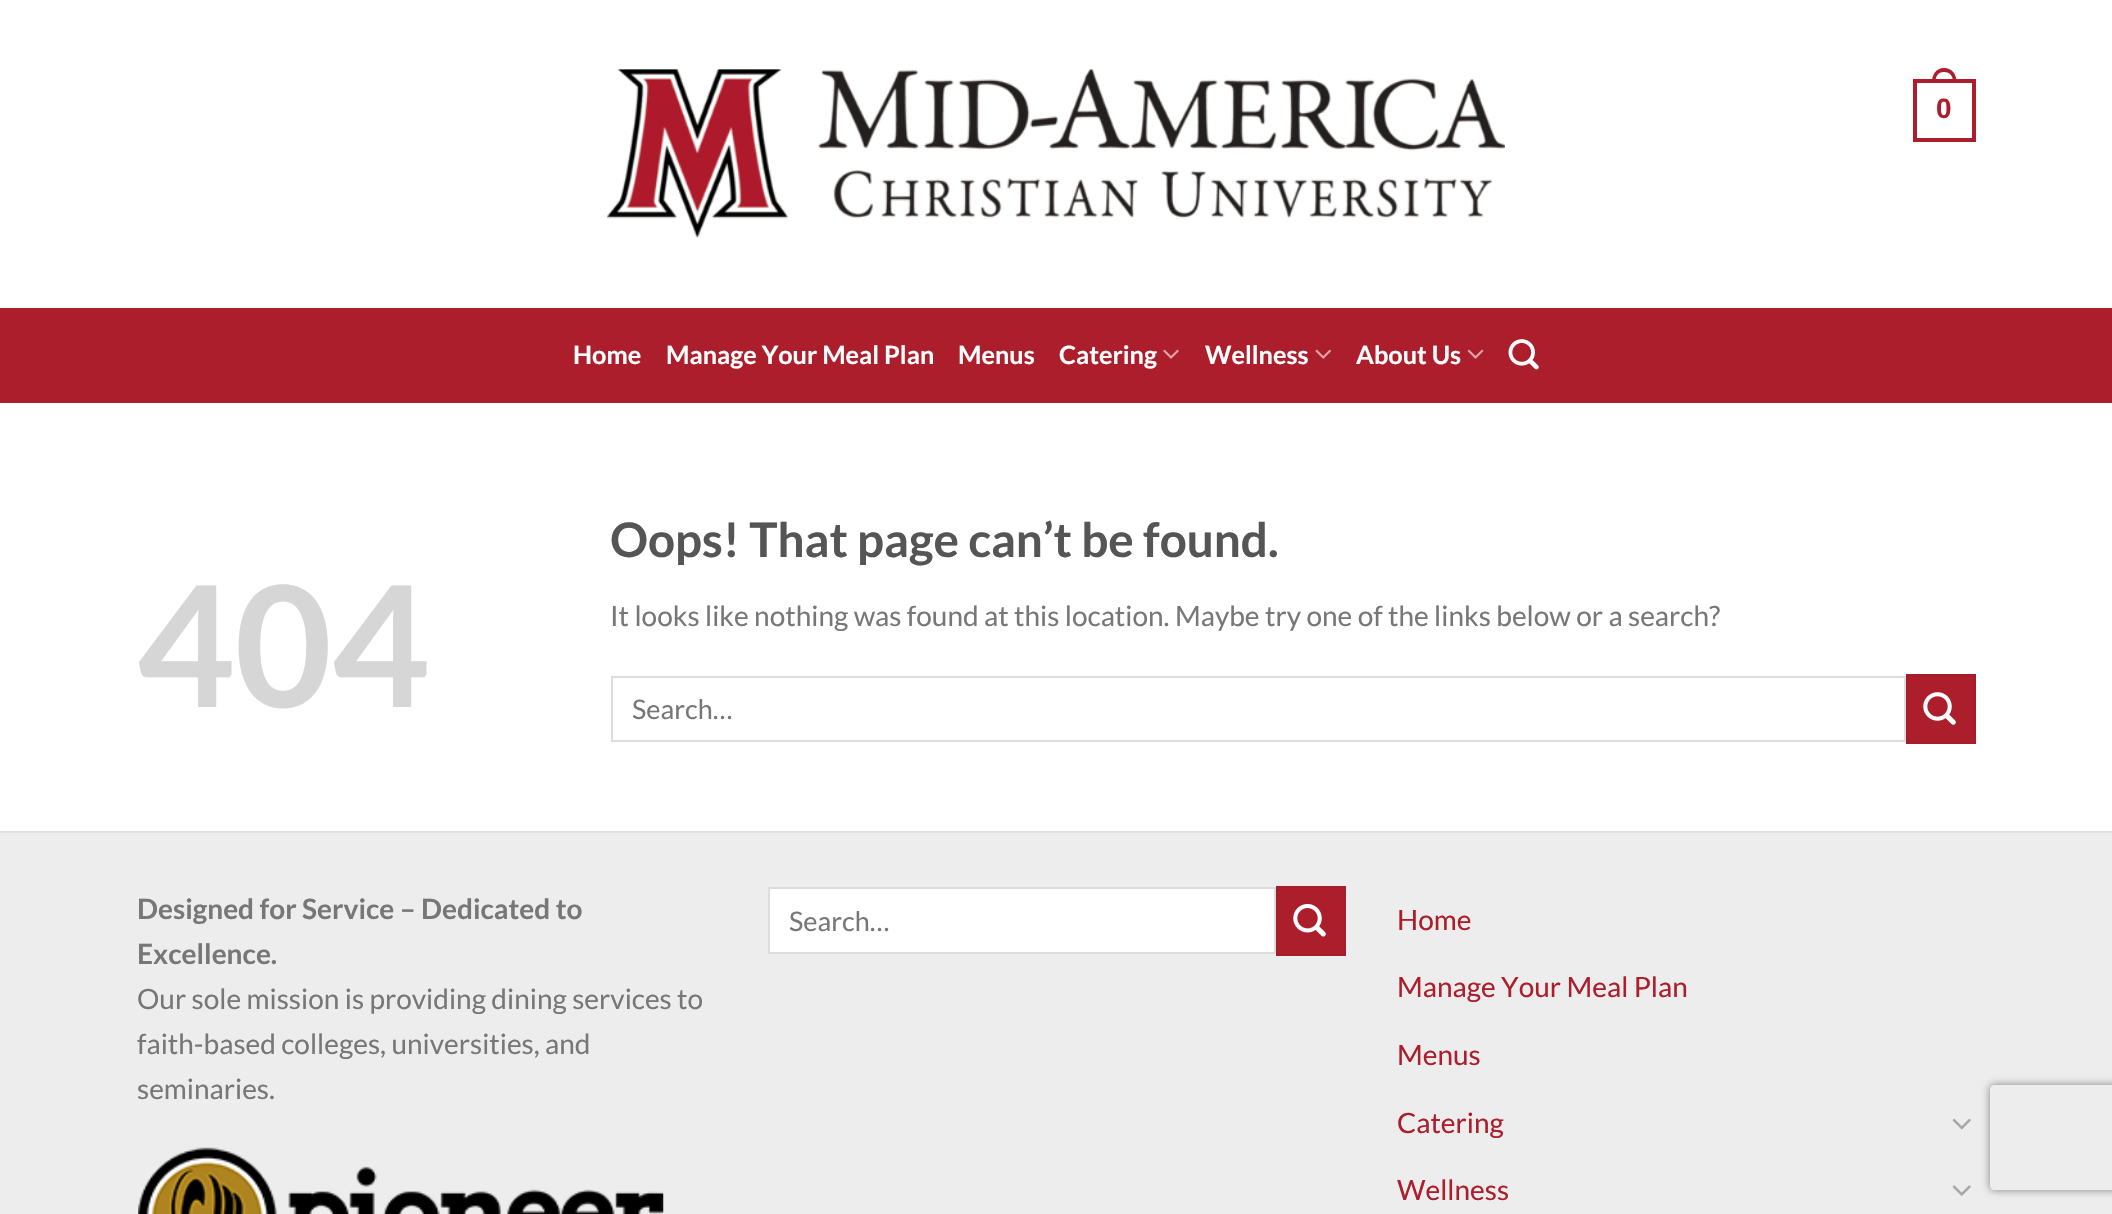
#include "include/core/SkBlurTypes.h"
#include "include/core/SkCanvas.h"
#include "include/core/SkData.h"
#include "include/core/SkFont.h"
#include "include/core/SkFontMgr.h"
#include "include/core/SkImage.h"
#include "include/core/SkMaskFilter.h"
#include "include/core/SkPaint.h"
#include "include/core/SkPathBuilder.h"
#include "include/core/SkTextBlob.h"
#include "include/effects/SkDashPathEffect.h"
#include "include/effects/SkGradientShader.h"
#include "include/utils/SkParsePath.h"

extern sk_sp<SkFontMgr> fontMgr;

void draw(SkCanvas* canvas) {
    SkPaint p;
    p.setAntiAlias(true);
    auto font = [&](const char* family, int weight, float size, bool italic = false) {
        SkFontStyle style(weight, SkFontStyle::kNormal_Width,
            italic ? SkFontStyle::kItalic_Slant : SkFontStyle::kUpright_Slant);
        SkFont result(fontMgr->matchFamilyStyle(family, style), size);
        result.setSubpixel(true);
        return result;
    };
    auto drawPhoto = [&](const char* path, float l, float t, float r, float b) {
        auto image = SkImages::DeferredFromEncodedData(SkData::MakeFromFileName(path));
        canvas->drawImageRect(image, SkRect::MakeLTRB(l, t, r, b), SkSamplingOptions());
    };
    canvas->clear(0xFFFFFFFF);
    drawPhoto("media/1.png", 607, 69, 1505, 238);
    p.setStyle(SkPaint::kStroke_Style);
    p.setStrokeWidth(4);
    p.setColor(0xFFAD1E2C);
    canvas->drawRect(SkRect::MakeLTRB(1915, 81, 1974, 140), p);
    p.setStyle(SkPaint::kFill_Style);
    canvas->drawPath(SkPathBuilder(SkPathFillType::kEvenOdd).moveTo(1944, 68).cubicTo(1952.5f, 68, 1956.5f, 74.5f, 1956.5f, 82).lineTo(1932, 82).cubicTo(1932, 74.5f, 1936, 68, 1944, 68).close().moveTo(1944, 72).cubicTo(1950.5f, 72, 1953, 76.5f, 1953, 82).lineTo(1935.5f, 82).cubicTo(1935.5f, 76.5f, 1938, 72, 1944, 72).close().detach(), p);
    auto font1 = font("Liberation Sans", 700, 28);
    canvas->drawString("0", 1936, 118, font1, p);
    canvas->drawRect(SkRect::MakeLTRB(0, 308, 2112, 403), p);
    auto font2 = font("Lato", 700, 25.25f);
    p.setColor(0xFFFFFFFF);
    {
        const struct { const char* s; float x, y; } items[] = {
            {"Home", 573, 364},
            {"Manage Your Meal Plan", 666, 364},
            {"Menus", 958, 364},
            {"Catering", 1059, 364},
        };
        for (auto [s, x, y] : items) {
            canvas->drawString(s, x, y, font2, p);
        }
    }
    drawPhoto("media/2.png", 1163, 349, 1179, 359);
    canvas->drawString("Wellness", 1205, 364, font2, p);
    drawPhoto("media/3.png", 1315, 349, 1331, 359);
    canvas->drawString("About Us", 1356, 364, font2, p);
    drawPhoto("media/4.png", 1467, 349, 1484, 359);
    drawPhoto("media/5.png", 1508, 339, 1539, 370);
    auto font3 = font("Lato", 700, 168);
    p.setColor(0xFFD6D6D6);
    canvas->drawString("404", 137, 707, font3, p);
    auto font4 = font("Lato", 700, 47.6f);
    p.setColor(0xFF555555);
    canvas->drawString("Oops! That page can’t be found.", 610, 557, font4, p);
    auto font5 = font("Lato", 400, 28);
    p.setColor(0xFF777777);
    canvas->drawString("It looks like nothing was found at this location. Maybe try one of the links below or a search?", 610, 626, font5, p);
    p.setStyle(SkPaint::kStroke_Style);
    p.setStrokeWidth(2);
    p.setColor(0xFFDDDDDD);
    canvas->drawRect(SkRect::MakeLTRB(612, 677, 1905, 741), p);
    auto font6 = font("Lato", 400, 27);
    p.setStyle(SkPaint::kFill_Style);
    p.setColor(0xFF777777);
    canvas->drawString("Search…", 632, 719, font6, p);
    p.setColor(0xFFAD1E2C);
    canvas->drawRect(SkRect::MakeLTRB(1907, 675, 1975, 743), p);
    p.setStyle(SkPaint::kStroke_Style);
    p.setColor(0xFFA41D2A);
    canvas->drawRect(SkRect::MakeLTRB(1907, 675, 1975, 743), p);
    drawPhoto("media/6.png", 1923, 692, 1956, 725);
    p.setStyle(SkPaint::kFill_Style);
    p.setColor(0xFFEDEDED);
    canvas->drawRect(SkRect::MakeLTRB(0, 833, 2112, 1214), p);
    p.setColor(0xFFE1E1E1);
    canvas->drawRect(SkRect::MakeLTRB(0, 831, 2112, 833), p);
    auto font7 = font("Lato", 700, 28);
    p.setColor(0xFF777777);
    canvas->drawString("Designed for Service – Dedicated to", 137, 919, font7, p);
    canvas->drawString("Excellence.", 137, 964, font7, p);
    {
        const struct { const char* s; float x, y; } items[] = {
            {"Our sole mission is providing dining services to", 137, 1009},
            {"faith-based colleges, universities, and", 137, 1054},
            {"seminaries.", 137, 1099},
        };
        for (auto [s, x, y] : items) {
            canvas->drawString(s, x, y, font5, p);
        }
    }
    drawPhoto("media/7.png", 138, 1147, 664, 1214);
    p.setColor(0xFFFFFFFF);
    canvas->drawRect(SkRect::MakeLTRB(769, 888, 1275, 953), p);
    p.setStyle(SkPaint::kStroke_Style);
    p.setColor(0xFFDDDDDD);
    canvas->drawRect(SkRect::MakeLTRB(769, 888, 1275, 953), p);
    p.setStyle(SkPaint::kFill_Style);
    p.setColor(0xFF777777);
    canvas->drawString("Search…", 789, 931, font6, p);
    p.setColor(0xFFAD1E2C);
    canvas->drawRect(SkRect::MakeLTRB(1277, 887, 1345, 955), p);
    p.setStyle(SkPaint::kStroke_Style);
    p.setColor(0xFFA41D2A);
    canvas->drawRect(SkRect::MakeLTRB(1277, 887, 1345, 955), p);
    drawPhoto("media/8.png", 1293, 903, 1326, 937);
    p.setStyle(SkPaint::kFill_Style);
    p.setColor(0xFFAD1E2C);
    {
        const struct { const char* s; float x, y; } items[] = {
            {"Home", 1397, 930},
            {"Manage Your Meal Plan", 1397, 997},
            {"Menus", 1397, 1065},
            {"Catering", 1397, 1133},
        };
        for (auto [s, x, y] : items) {
            canvas->drawString(s, x, y, font5, p);
        }
    }
    drawPhoto("media/9.png", 1952, 1118, 1971, 1130);
    canvas->drawString("Wellness", 1397, 1200, font5, p);
    drawPhoto("media/10.png", 1952, 1185, 1971, 1196);
    canvas->save();
    canvas->clipPath(SkPathBuilder(SkPathFillType::kEvenOdd).moveTo(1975, 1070).lineTo(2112, 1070).lineTo(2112, 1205).lineTo(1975, 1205).close().moveTo(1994, 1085).lineTo(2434, 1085).cubicTo(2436, 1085, 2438, 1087, 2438, 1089).lineTo(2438, 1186).cubicTo(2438, 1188, 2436, 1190, 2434, 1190).lineTo(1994, 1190).cubicTo(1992, 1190, 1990, 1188, 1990, 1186).lineTo(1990, 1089).cubicTo(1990, 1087, 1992, 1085, 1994, 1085).close().detach(), true);
    p.setColor(0xFF808080);
    p.setMaskFilter(SkMaskFilter::MakeBlur(kNormal_SkBlurStyle, 4.5f));
    canvas->drawRoundRect(SkRect::MakeLTRB(1990, 1085, 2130, 1190), 4, 4, p);
    p.setMaskFilter(nullptr);
    canvas->restore();
}
